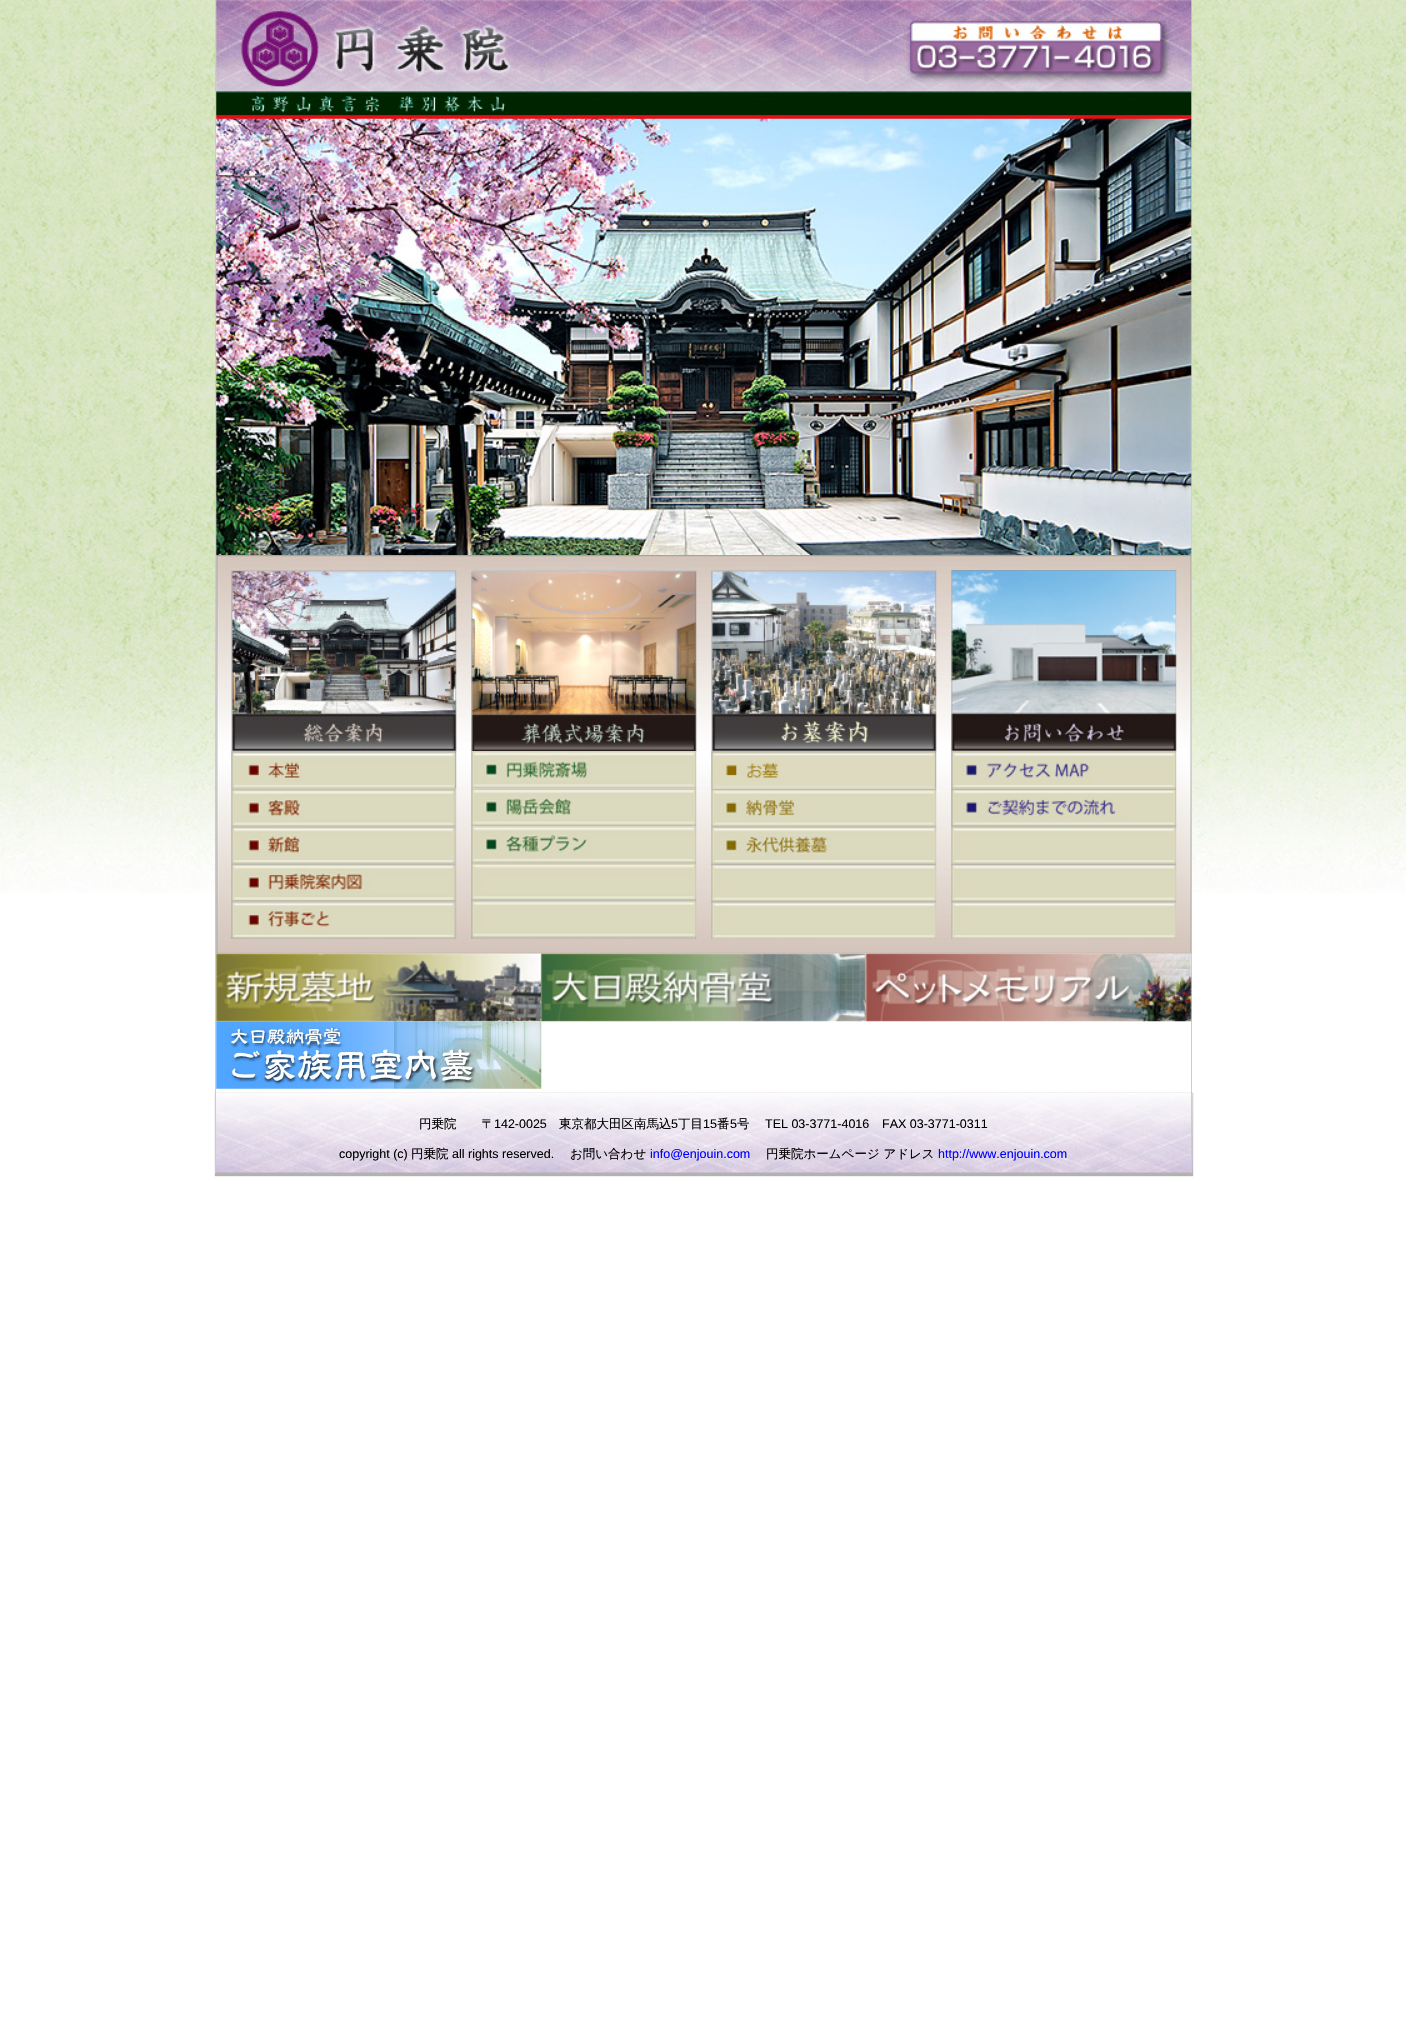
#include "include/core/SkBlurTypes.h"
#include "include/core/SkCanvas.h"
#include "include/core/SkData.h"
#include "include/core/SkFont.h"
#include "include/core/SkFontMgr.h"
#include "include/core/SkImage.h"
#include "include/core/SkMaskFilter.h"
#include "include/core/SkPaint.h"
#include "include/core/SkPathBuilder.h"
#include "include/core/SkTextBlob.h"
#include "include/effects/SkDashPathEffect.h"
#include "include/effects/SkGradientShader.h"
#include "include/utils/SkParsePath.h"

extern sk_sp<SkFontMgr> fontMgr;

void draw(SkCanvas* canvas) {
    SkPaint p;
    p.setAntiAlias(true);
    auto font = [&](const char* family, int weight, float size, bool italic = false) {
        SkFontStyle style(weight, SkFontStyle::kNormal_Width,
            italic ? SkFontStyle::kItalic_Slant : SkFontStyle::kUpright_Slant);
        SkFont result(fontMgr->matchFamilyStyle(family, style), size);
        result.setSubpixel(true);
        return result;
    };
    auto drawPhoto = [&](const char* path, float l, float t, float r, float b) {
        auto image = SkImages::DeferredFromEncodedData(SkData::MakeFromFileName(path));
        canvas->drawImageRect(image, SkRect::MakeLTRB(l, t, r, b), SkSamplingOptions());
    };
    canvas->clear(0xFFFFFFFF);
    drawPhoto("media/1.png", 0, 0, 1406, 893);
    {
        const struct { float l, t, r, b; SkColor color; } items[] = {
            {1191, 0, 1192, 118, 0xFFCCCCCC},
            {215, 0, 216, 118, 0xFFCCCCCC},
            {216, 118, 1191, 893, 0xFFFFFFFF},
        };
        for (auto [l, t, r, b, color] : items) {
            p.setColor(color);
            canvas->drawRect(SkRect::MakeLTRB(l, t, r, b), p);
        }
    }
    p.setColor(0x4D000000);
    p.setMaskFilter(SkMaskFilter::MakeBlur(kNormal_SkBlurStyle, 0.5f));
    canvas->drawRect(SkRect::MakeLTRB(215, 1093, 1193, 1176), p);
    p.setMaskFilter(nullptr);
    drawPhoto("media/33.png", 216, 1093, 1193, 1173);
    p.setColor(0xFFCCCCCC);
    canvas->drawRect(SkRect::MakeLTRB(1191, 118, 1192, 1173), p);
    drawPhoto("media/3.png", 216, 117, 1192, 555);
    drawPhoto("media/2.png", 216, 0, 1192, 119);
    drawPhoto("media/4.png", 216, 555, 1192, 954);
    drawPhoto("media/5.png", 231, 570, 457, 752);
    drawPhoto("media/6.png", 471, 570, 697, 752);
    drawPhoto("media/7.png", 711, 570, 937, 752);
    drawPhoto("media/8.png", 951, 570, 1177, 752);
    drawPhoto("media/9.png", 231, 751, 457, 789);
    drawPhoto("media/10.png", 471, 751, 697, 789);
    drawPhoto("media/11.png", 711, 751, 937, 789);
    drawPhoto("media/12.png", 951, 751, 1177, 789);
    drawPhoto("media/13.png", 231, 788, 457, 827);
    drawPhoto("media/14.png", 471, 788, 697, 827);
    drawPhoto("media/15.png", 711, 788, 937, 827);
    drawPhoto("media/16.png", 951, 788, 1177, 827);
    drawPhoto("media/17.png", 231, 826, 457, 864);
    drawPhoto("media/18.png", 471, 826, 697, 864);
    drawPhoto("media/19.png", 711, 826, 937, 864);
    drawPhoto("media/20.png", 951, 826, 1177, 864);
    drawPhoto("media/21.png", 231, 863, 457, 902);
    drawPhoto("media/22.png", 471, 863, 697, 902);
    drawPhoto("media/23.png", 711, 863, 937, 902);
    drawPhoto("media/24.png", 951, 863, 1177, 902);
    drawPhoto("media/25.png", 231, 901, 457, 939);
    drawPhoto("media/26.png", 471, 901, 697, 939);
    drawPhoto("media/27.png", 711, 901, 937, 939);
    drawPhoto("media/28.png", 951, 901, 1177, 939);
    drawPhoto("media/29.png", 216, 953, 542, 1022);
    drawPhoto("media/30.png", 541, 953, 867, 1022);
    drawPhoto("media/31.png", 866, 953, 1192, 1022);
    drawPhoto("media/32.png", 216, 1021, 542, 1089);
    canvas->drawRect(SkRect::MakeLTRB(215, 118, 216, 1173), p);
    auto font1 = font("WenQuanYi Zen Hei", 500, 12.5f);
    p.setColor(0xFF000000);
    canvas->drawString("円乗院　　〒", 419, 1128, font1, p);
    auto font2 = font("Liberation Sans", 400, 12.5f);
    canvas->drawString("142-0025", 494, 1128, font2, p);
    canvas->drawString("東京都大田区南馬込", 559, 1128, font1, p);
    canvas->drawString("5", 671, 1128, font2, p);
    canvas->drawString("丁目", 678, 1128, font1, p);
    canvas->drawString("15", 703, 1128, font2, p);
    canvas->drawString("番", 717, 1128, font1, p);
    canvas->drawString("5", 730, 1128, font2, p);
    canvas->drawString("号", 737, 1128, font1, p);
    {
        const struct { const char* s; float x, y; } items[] = {
            {"TEL 03-3771-4016", 765, 1128},
            {"FAX 03-3771-0311", 882, 1128},
            {"copyright (c)", 339, 1158},
        };
        for (auto [s, x, y] : items) {
            canvas->drawString(s, x, y, font2, p);
        }
    }
    canvas->drawString("円乗院", 411, 1158, font1, p);
    canvas->drawString("all rights reserved.", 452, 1158, font2, p);
    canvas->drawString("お問い合わせ", 570, 1158, font1, p);
    p.setColor(0xFF0000FF);
    canvas->drawString("info@enjouin.com", 650, 1158, font2, p);
    p.setColor(0xFF000000);
    canvas->drawString("円乗院ホームページ アドレス", 766, 1158, font1, p);
    p.setColor(0xFF0000FF);
    canvas->drawString("http://www.enjouin.com", 938, 1158, font2, p);
}
